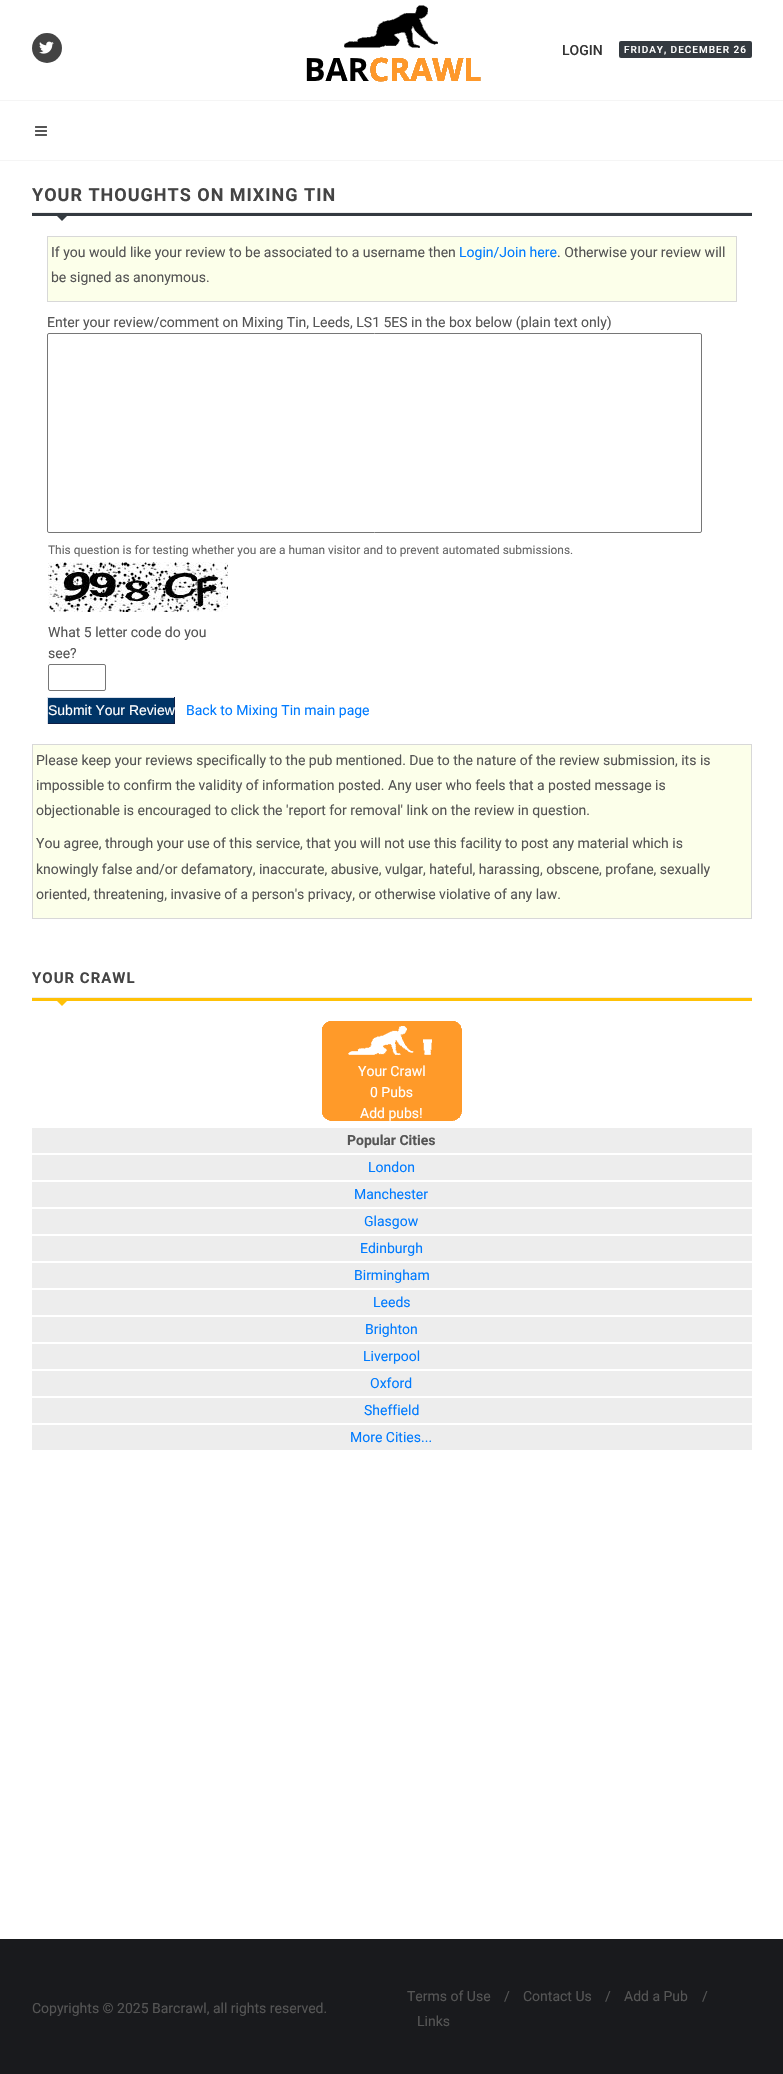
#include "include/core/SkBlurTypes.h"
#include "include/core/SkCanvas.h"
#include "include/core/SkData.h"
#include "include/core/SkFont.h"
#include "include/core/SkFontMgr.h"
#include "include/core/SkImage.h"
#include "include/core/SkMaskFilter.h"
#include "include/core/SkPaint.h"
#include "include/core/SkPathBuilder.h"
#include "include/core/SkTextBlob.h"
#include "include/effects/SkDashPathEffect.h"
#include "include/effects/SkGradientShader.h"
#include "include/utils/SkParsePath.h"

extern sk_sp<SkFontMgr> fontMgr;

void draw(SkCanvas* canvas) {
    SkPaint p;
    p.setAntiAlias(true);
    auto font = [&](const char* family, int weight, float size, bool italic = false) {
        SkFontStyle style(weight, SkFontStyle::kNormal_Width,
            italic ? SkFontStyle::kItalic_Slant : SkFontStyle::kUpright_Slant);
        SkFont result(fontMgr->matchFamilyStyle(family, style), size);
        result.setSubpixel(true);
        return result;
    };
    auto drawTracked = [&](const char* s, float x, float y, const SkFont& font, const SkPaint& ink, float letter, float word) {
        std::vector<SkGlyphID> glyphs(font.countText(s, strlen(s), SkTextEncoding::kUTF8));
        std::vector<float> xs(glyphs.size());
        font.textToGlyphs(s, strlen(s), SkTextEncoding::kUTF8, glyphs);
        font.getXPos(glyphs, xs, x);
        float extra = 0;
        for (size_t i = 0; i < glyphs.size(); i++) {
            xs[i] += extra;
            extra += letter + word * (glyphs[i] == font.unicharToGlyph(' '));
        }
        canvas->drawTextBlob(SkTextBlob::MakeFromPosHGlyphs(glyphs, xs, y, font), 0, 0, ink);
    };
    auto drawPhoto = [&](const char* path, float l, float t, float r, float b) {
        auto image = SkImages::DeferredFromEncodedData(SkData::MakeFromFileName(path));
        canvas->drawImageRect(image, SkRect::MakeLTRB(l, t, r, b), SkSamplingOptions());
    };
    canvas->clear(0xFFFFFFFF);
    p.setColor(0xFFF5F5F5);
    canvas->drawRect(SkRect::MakeLTRB(0, 160, 783, 161), p);
    p.setColor(0xFF444444);
    canvas->drawCircle(47, 48, 15, p);
    drawPhoto("media/1.png", 39, 41, 54, 54);
    drawPhoto("media/2.png", 306, 5, 481, 82);
    auto font1 = font("Roboto", 500, 14);
    p.setColor(0xFF333333);
    canvas->drawString("LOGIN", 562, 55, font1, p);
    p.setColor(0xFF343A40);
    canvas->drawRoundRect(SkRect::MakeLTRB(619, 41, 752, 58), 2, 2, p);
    auto font2 = font("Roboto", 500, 10);
    p.setColor(0xFFFFFFFF);
    drawTracked("FRIDAY, DECEMBER 26", 624, 53, font2, p, 1, 0);
    p.setColor(0xFFF5F5F5);
    canvas->drawRect(SkRect::MakeLTRB(0, 100, 783, 101), p);
    drawPhoto("media/3.png", 35, 126, 47, 136);
    auto font3 = font("Roboto", 700, 18);
    p.setColor(0xFF444444);
    drawTracked("YOUR THOUGHTS ON MIXING TIN", 32, 201, font3, p, 1, 0);
    p.setColor(0xFFEEEEEE);
    canvas->drawRect(SkRect::MakeLTRB(32, 212, 752, 213), p);
    p.setColor(0xFF343A40);
    canvas->drawRect(SkRect::MakeLTRB(32, 213, 752, 216), p);
    canvas->drawPath(SkPathBuilder().moveTo(54, 213).lineTo(70, 213).lineTo(62, 221).close().detach(), p);
    p.setColor(0xFFFCFFEA);
    canvas->drawRect(SkRect::MakeLTRB(47.5f, 236.5f, 736.5f, 301.5f), p);
    p.setStyle(SkPaint::kStroke_Style);
    p.setStrokeWidth(1);
    p.setColor(0xFFD8D8D8);
    canvas->drawRect(SkRect::MakeLTRB(47.5f, 236.5f, 736.5f, 301.5f), p);
    auto font4 = font("Roboto", 400, 14);
    p.setStyle(SkPaint::kFill_Style);
    p.setColor(0xFF555555);
    canvas->drawString("If you would like your review to be associated to a username then", 51, 257, font4, p);
    p.setColor(0xFF007BFF);
    canvas->drawString("Login/Join here", 459, 257, font4, p);
    p.setColor(0xFF555555);
    {
        const struct { const char* s; float x, y; } items[] = {
            {". Otherwise your review will", 557, 257},
            {"be signed as anonymous.", 51, 282},
            {"Enter your review/comment on Mixing Tin, Leeds, LS1 5ES in the box below (plain text only)", 47, 327},
        };
        for (auto [s, x, y] : items) {
            canvas->drawString(s, x, y, font4, p);
        }
    }
    p.setStyle(SkPaint::kStroke_Style);
    p.setColor(0xFF767676);
    canvas->drawRoundRect(SkRect::MakeLTRB(47.5f, 333.5f, 701.5f, 532.5f), 1.5f, 1.5f, p);
    auto font5 = font("Roboto", 400, 11.9f);
    p.setStyle(SkPaint::kFill_Style);
    p.setColor(0xFF666666);
    canvas->drawString("This question is for testing whether you are a human visitor and to prevent automated submissions.", 48, 554, font5, p);
    drawPhoto("media/4.png", 48, 562, 228, 612);
    p.setColor(0xFF555555);
    canvas->drawString("What 5 letter code do you", 48, 637, font4, p);
    canvas->drawString("see?", 48, 658, font4, p);
    p.setStyle(SkPaint::kStroke_Style);
    p.setColor(0xFF767676);
    canvas->drawRoundRect(SkRect::MakeLTRB(48.5f, 664.5f, 105.5f, 690.5f), 1.5f, 1.5f, p);
    p.setStyle(SkPaint::kFill_Style);
    {
        const struct { float l, t, r, b; SkColor color; } items[] = {
            {48, 698, 174, 723, 0xFF003466},
            {47, 697, 175, 698, 0xFFD9DFEA},
            {174, 697, 175, 724, 0xFF0E1F46},
            {47, 723, 175, 724, 0xFF0E1F46},
            {47, 697, 48, 724, 0xFFD9DFEA},
        };
        for (auto [l, t, r, b, color] : items) {
            p.setColor(color);
            canvas->drawRect(SkRect::MakeLTRB(l, t, r, b), p);
        }
    }
    auto font6 = font("Liberation Sans", 400, 14);
    p.setColor(0xFFFFFFFF);
    canvas->drawString("Submit Your Review", 48, 715, font6, p);
    p.setColor(0xFF007BFF);
    canvas->drawString("Back to Mixing Tin main page", 186, 715, font4, p);
    p.setColor(0xFFFCFFEA);
    canvas->drawRect(SkRect::MakeLTRB(32.5f, 744.5f, 751.5f, 918.5f), p);
    p.setStyle(SkPaint::kStroke_Style);
    p.setColor(0xFFD8D8D8);
    canvas->drawRect(SkRect::MakeLTRB(32.5f, 744.5f, 751.5f, 918.5f), p);
    p.setStyle(SkPaint::kFill_Style);
    p.setColor(0xFF555555);
    {
        const struct { const char* s; float x, y; } items[] = {
            {"Please keep your reviews specifically to the pub mentioned. Due to the nature of the review submission, its is", 36, 765},
            {"impossible to confirm the validity of information posted. Any user who feels that a posted message is", 36, 790},
            {"objectionable is encouraged to click the 'report for removal' link on the review in question.", 36, 815},
            {"You agree, through your use of this service, that you will not use this facility to post any material which is", 36, 848},
            {"knowingly false and/or defamatory, inaccurate, abusive, vulgar, hateful, harassing, obscene, profane, sexually", 36, 874},
            {"oriented, threatening, invasive of a person's privacy, or otherwise violative of any law.", 36, 899},
        };
        for (auto [s, x, y] : items) {
            canvas->drawString(s, x, y, font4, p);
        }
    }
    auto font7 = font("Roboto", 700, 15);
    p.setColor(0xFF444444);
    drawTracked("YOUR CRAWL", 32, 983, font7, p, 1, 0);
    p.setColor(0xFFEEEEEE);
    canvas->drawRect(SkRect::MakeLTRB(32, 997, 752, 998), p);
    p.setColor(0xFFFFC107);
    canvas->drawRect(SkRect::MakeLTRB(32, 998, 752, 1001), p);
    canvas->drawPath(SkPathBuilder().moveTo(54, 998).lineTo(70, 998).lineTo(62, 1006).close().detach(), p);
    drawPhoto("media/5.png", 322, 1021, 462, 1121);
    p.setColor(0xFFFFFFFF);
    {
        const struct { const char* s; float x, y; } items[] = {
            {"Your Crawl", 358, 1076},
            {"0 Pubs", 370, 1097},
            {"Add pubs!", 360, 1118},
        };
        for (auto [s, x, y] : items) {
            canvas->drawString(s, x, y, font4, p);
        }
    }
    p.setColor(0xFFEDEDED);
    canvas->drawRect(SkRect::MakeLTRB(32, 1128, 752, 1450), p);
    p.setColor(0xFFFFFFFF);
    canvas->drawRect(SkRect::MakeLTRB(32, 1153, 752, 1155), p);
    auto font8 = font("Roboto", 700, 14);
    p.setColor(0xFF555555);
    canvas->drawString("Popular Cities", 347, 1145, font8, p);
    p.setColor(0xFFFFFFFF);
    canvas->drawRect(SkRect::MakeLTRB(32, 1180, 752, 1182), p);
    p.setColor(0xFF007BFF);
    canvas->drawString("London", 368, 1172, font4, p);
    p.setColor(0xFFFFFFFF);
    canvas->drawRect(SkRect::MakeLTRB(32, 1207, 752, 1209), p);
    p.setColor(0xFF007BFF);
    canvas->drawString("Manchester", 354, 1199, font4, p);
    p.setColor(0xFFFFFFFF);
    canvas->drawRect(SkRect::MakeLTRB(32, 1234, 752, 1236), p);
    p.setColor(0xFF007BFF);
    canvas->drawString("Glasgow", 364, 1226, font4, p);
    p.setColor(0xFFFFFFFF);
    canvas->drawRect(SkRect::MakeLTRB(32, 1261, 752, 1263), p);
    p.setColor(0xFF007BFF);
    canvas->drawString("Edinburgh", 360, 1253, font4, p);
    p.setColor(0xFFFFFFFF);
    canvas->drawRect(SkRect::MakeLTRB(32, 1288, 752, 1290), p);
    p.setColor(0xFF007BFF);
    canvas->drawString("Birmingham", 354, 1280, font4, p);
    p.setColor(0xFFFFFFFF);
    canvas->drawRect(SkRect::MakeLTRB(32, 1315, 752, 1317), p);
    p.setColor(0xFF007BFF);
    canvas->drawString("Leeds", 373, 1307, font4, p);
    p.setColor(0xFFFFFFFF);
    canvas->drawRect(SkRect::MakeLTRB(32, 1342, 752, 1344), p);
    p.setColor(0xFF007BFF);
    canvas->drawString("Brighton", 365, 1334, font4, p);
    p.setColor(0xFFFFFFFF);
    canvas->drawRect(SkRect::MakeLTRB(32, 1369, 752, 1371), p);
    p.setColor(0xFF007BFF);
    canvas->drawString("Liverpool", 363, 1361, font4, p);
    p.setColor(0xFFFFFFFF);
    canvas->drawRect(SkRect::MakeLTRB(32, 1396, 752, 1398), p);
    p.setColor(0xFF007BFF);
    canvas->drawString("Oxford", 370, 1388, font4, p);
    p.setColor(0xFFFFFFFF);
    canvas->drawRect(SkRect::MakeLTRB(32, 1423, 752, 1425), p);
    p.setColor(0xFF007BFF);
    canvas->drawString("Sheffield", 364, 1415, font4, p);
    canvas->drawString("More Cities...", 350, 1442, font4, p);
    p.setColor(0xFF191A1D);
    canvas->drawRect(SkRect::MakeLTRB(0, 1939, 783, 2074), p);
    p.setColor(0xFF555555);
    {
        const struct { const char* s; float x, y; } items[] = {
            {"Copyrights © 2025 Barcrawl, all rights reserved.", 32, 2013},
            {"Terms of Use", 407, 2001},
            {"/", 504, 2001},
            {"Contact Us", 523, 2001},
            {"/", 605, 2001},
            {"Add a Pub", 624, 2001},
            {"/", 702, 2001},
            {"Links", 417, 2026},
        };
        for (auto [s, x, y] : items) {
            canvas->drawString(s, x, y, font4, p);
        }
    }
}
